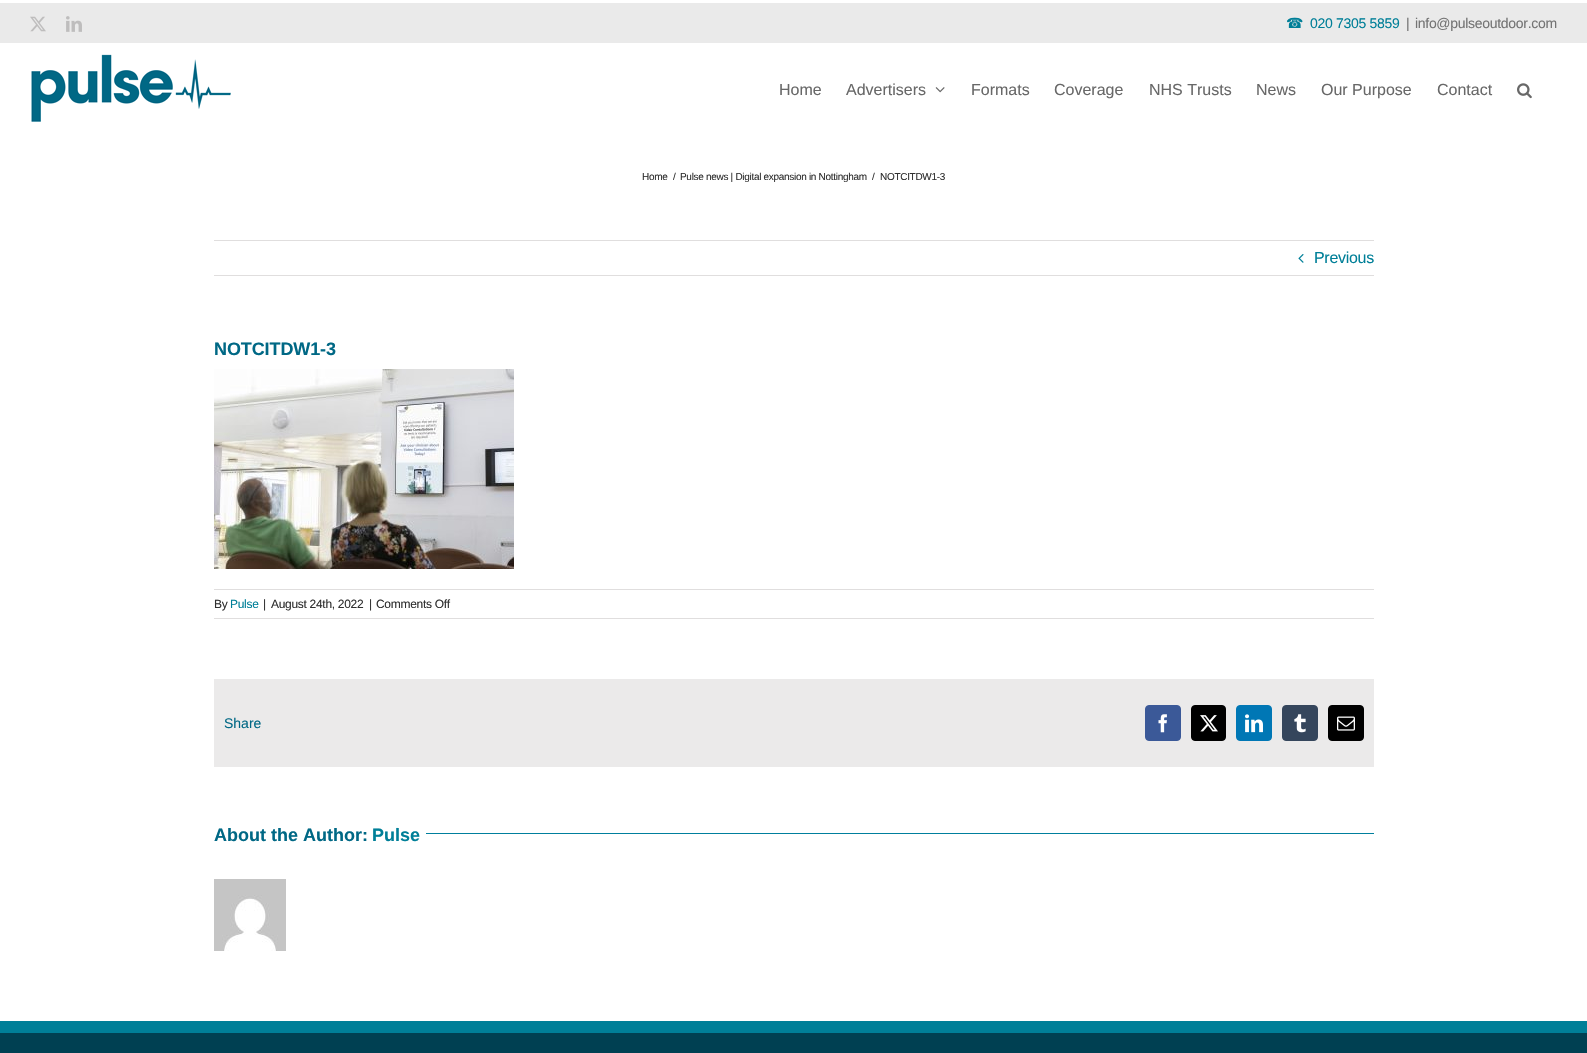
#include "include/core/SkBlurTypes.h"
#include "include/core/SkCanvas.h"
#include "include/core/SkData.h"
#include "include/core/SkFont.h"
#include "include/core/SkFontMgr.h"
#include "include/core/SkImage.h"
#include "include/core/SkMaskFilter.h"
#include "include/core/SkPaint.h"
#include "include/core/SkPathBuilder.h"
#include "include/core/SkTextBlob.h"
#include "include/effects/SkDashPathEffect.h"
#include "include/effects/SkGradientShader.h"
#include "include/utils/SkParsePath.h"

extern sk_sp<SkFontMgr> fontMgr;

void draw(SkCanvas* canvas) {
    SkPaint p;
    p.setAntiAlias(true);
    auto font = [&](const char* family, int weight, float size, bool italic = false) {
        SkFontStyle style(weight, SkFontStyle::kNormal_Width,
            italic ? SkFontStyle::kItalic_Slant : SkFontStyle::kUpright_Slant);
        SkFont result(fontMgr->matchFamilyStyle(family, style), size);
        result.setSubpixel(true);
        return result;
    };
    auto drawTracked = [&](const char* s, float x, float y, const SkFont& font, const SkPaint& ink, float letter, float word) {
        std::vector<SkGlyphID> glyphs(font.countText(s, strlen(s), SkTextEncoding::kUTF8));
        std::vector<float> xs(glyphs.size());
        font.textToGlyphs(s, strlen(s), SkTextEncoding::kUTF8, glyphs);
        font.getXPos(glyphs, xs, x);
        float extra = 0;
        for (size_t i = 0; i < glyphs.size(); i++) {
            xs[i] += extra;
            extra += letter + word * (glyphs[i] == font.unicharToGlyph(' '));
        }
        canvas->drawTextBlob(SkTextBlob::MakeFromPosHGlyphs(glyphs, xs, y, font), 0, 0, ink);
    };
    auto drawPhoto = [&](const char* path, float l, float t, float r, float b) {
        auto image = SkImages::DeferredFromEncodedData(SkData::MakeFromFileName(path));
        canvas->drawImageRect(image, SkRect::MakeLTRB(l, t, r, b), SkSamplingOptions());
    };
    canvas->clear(0xFFFFFFFF);
    p.setColor(0xFFEAEAEA);
    canvas->drawRect(SkRect::MakeLTRB(0, 3, 1587, 43), p);
    drawPhoto("media/1.png", 30, 16, 46, 32);
    drawPhoto("media/2.png", 66, 16, 82, 32);
    auto font1 = font("DejaVu Sans", 400, 14);
    p.setColor(0xFF007F98);
    drawTracked("☎", 1286, 28, font1, p, -0.3f, 0);
    auto font2 = font("Liberation Sans", 400, 14);
    drawTracked("020 7305 5859", 1310, 28, font2, p, -0.3f, 0);
    p.setColor(0xFF747474);
    drawTracked("|", 1406, 28, font2, p, -0.3f, 0);
    drawTracked("info@pulseoutdoor.com", 1415, 28, font2, p, -0.3f, 0);
    drawPhoto("media/3.png", 31, 54, 231, 122);
    auto font3 = font("Liberation Sans", 400, 16);
    p.setColor(0xFF686868);
    canvas->drawString("Home", 779, 95, font3, p);
    canvas->drawString("Advertisers", 846, 95, font3, p);
    drawPhoto("media/4.png", 935, 87, 945, 93);
    {
        const struct { const char* s; float x, y; } items[] = {
            {"Formats", 971, 95},
            {"Coverage", 1054, 95},
            {"NHS Trusts", 1149, 95},
            {"News", 1256, 95},
            {"Our Purpose", 1321, 95},
            {"Contact", 1437, 95},
        };
        for (auto [s, x, y] : items) {
            canvas->drawString(s, x, y, font3, p);
        }
    }
    drawPhoto("media/5.png", 1517, 83, 1532, 99);
    auto font4 = font("Liberation Sans", 400, 10);
    p.setColor(0xFF303030);
    {
        const struct { const char* s; float x, y; } items[] = {
            {"Home", 642, 180},
            {"/", 673, 180},
            {"Pulse news | Digital expansion in Nottingham", 680, 180},
            {"/", 872, 180},
            {"NOTCITDW1-3", 880, 180},
        };
        for (auto [s, x, y] : items) {
            drawTracked(s, x, y, font4, p, -0.3f, 0);
        }
    }
    p.setColor(0xFFE0DEDE);
    canvas->drawRect(SkRect::MakeLTRB(214, 240, 1374, 241), p);
    canvas->drawRect(SkRect::MakeLTRB(214, 275, 1374, 276), p);
    drawPhoto("media/6.png", 1298, 254, 1304, 263);
    p.setColor(0xFF007F98);
    drawTracked("Previous", 1314, 263, font3, p, -0.3f, 0);
    auto font5 = font("Liberation Sans", 700, 18);
    p.setColor(0xFF006885);
    drawTracked("NOTCITDW1-3", 214, 355, font5, p, -0.1f, 0);
    drawPhoto("media/7.png", 214, 369, 514, 569);
    p.setColor(0xFFE0DEDE);
    canvas->drawRect(SkRect::MakeLTRB(214, 589, 1374, 590), p);
    canvas->drawRect(SkRect::MakeLTRB(214, 618, 1374, 619), p);
    auto font6 = font("Liberation Sans", 400, 12);
    p.setColor(0xFF303030);
    drawTracked("By", 214, 608, font6, p, -0.3f, 0);
    p.setColor(0xFF007F98);
    drawTracked("Pulse", 230, 608, font6, p, -0.3f, 0);
    p.setColor(0xFF303030);
    {
        const struct { const char* s; float x, y; } items[] = {
            {"|", 263, 608},
            {"August 24th, 2022", 271, 608},
            {"|", 369, 608},
            {"Comments Off", 376, 608},
        };
        for (auto [s, x, y] : items) {
            drawTracked(s, x, y, font6, p, -0.3f, 0);
        }
    }
    p.setColor(0xFFEBEAEA);
    canvas->drawRect(SkRect::MakeLTRB(214, 679, 1374, 767), p);
    p.setColor(0xFF006885);
    canvas->drawString("Share", 224, 728, font2, p);
    p.setColor(0xFF3B5998);
    canvas->drawRoundRect(SkRect::MakeLTRB(1145.5f, 705.5f, 1180.5f, 740.5f), 3.5f, 3.5f, p);
    p.setStyle(SkPaint::kStroke_Style);
    p.setStrokeWidth(1);
    canvas->drawRoundRect(SkRect::MakeLTRB(1145.5f, 705.5f, 1180.5f, 740.5f), 3.5f, 3.5f, p);
    drawPhoto("media/8.png", 1158, 714, 1167, 733);
    p.setStyle(SkPaint::kFill_Style);
    p.setColor(0xFF000000);
    canvas->drawRoundRect(SkRect::MakeLTRB(1191.5f, 705.5f, 1225.5f, 740.5f), 3.5f, 3.5f, p);
    p.setStyle(SkPaint::kStroke_Style);
    canvas->drawRoundRect(SkRect::MakeLTRB(1191.5f, 705.5f, 1225.5f, 740.5f), 3.5f, 3.5f, p);
    drawPhoto("media/9.png", 1200, 715, 1218, 732);
    p.setStyle(SkPaint::kFill_Style);
    p.setColor(0xFF0077B5);
    canvas->drawRoundRect(SkRect::MakeLTRB(1236.5f, 705.5f, 1271.5f, 740.5f), 3.5f, 3.5f, p);
    p.setStyle(SkPaint::kStroke_Style);
    canvas->drawRoundRect(SkRect::MakeLTRB(1236.5f, 705.5f, 1271.5f, 740.5f), 3.5f, 3.5f, p);
    drawPhoto("media/10.png", 1245, 714, 1263, 733);
    p.setStyle(SkPaint::kFill_Style);
    p.setColor(0xFF35465C);
    canvas->drawRoundRect(SkRect::MakeLTRB(1282.5f, 705.5f, 1317.5f, 740.5f), 3.5f, 3.5f, p);
    p.setStyle(SkPaint::kStroke_Style);
    canvas->drawRoundRect(SkRect::MakeLTRB(1282.5f, 705.5f, 1317.5f, 740.5f), 3.5f, 3.5f, p);
    drawPhoto("media/11.png", 1294, 714, 1306, 733);
    p.setStyle(SkPaint::kFill_Style);
    p.setColor(0xFF000000);
    canvas->drawRoundRect(SkRect::MakeLTRB(1328.5f, 705.5f, 1363.5f, 740.5f), 3.5f, 3.5f, p);
    p.setStyle(SkPaint::kStroke_Style);
    canvas->drawRoundRect(SkRect::MakeLTRB(1328.5f, 705.5f, 1363.5f, 740.5f), 3.5f, 3.5f, p);
    drawPhoto("media/12.png", 1337, 716, 1355, 731);
    p.setStyle(SkPaint::kFill_Style);
    p.setColor(0xFF006885);
    canvas->drawString("About the Author:", 214, 841, font5, p);
    p.setColor(0xFF007F98);
    canvas->drawString("Pulse", 372, 841, font5, p);
    p.setColor(0xFF007F9D);
    canvas->drawRect(SkRect::MakeLTRB(426, 833, 1374, 834), p);
    drawPhoto("media/13.png", 214, 879, 286, 951);
    p.setColor(0xFF004052);
    canvas->drawRect(SkRect::MakeLTRB(0, 1033, 1587, 1053), p);
    p.setColor(0xFF007F98);
    canvas->drawRect(SkRect::MakeLTRB(0, 1021, 1587, 1033), p);
}
